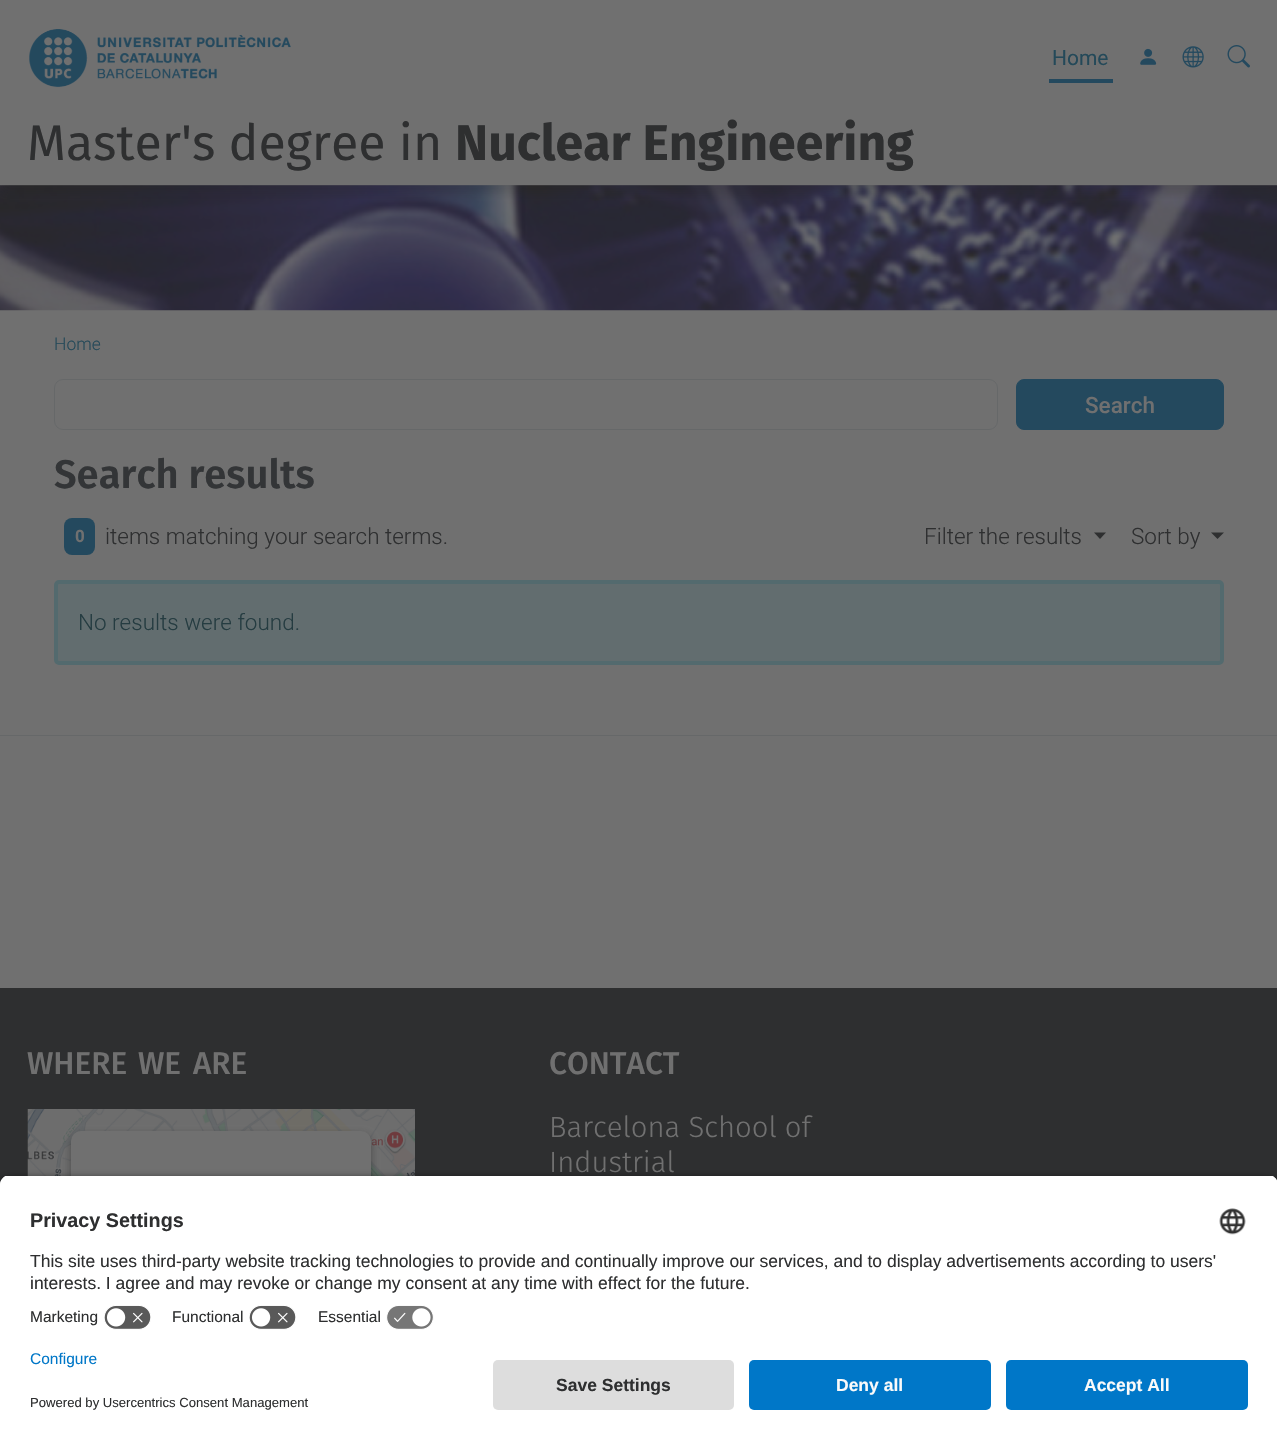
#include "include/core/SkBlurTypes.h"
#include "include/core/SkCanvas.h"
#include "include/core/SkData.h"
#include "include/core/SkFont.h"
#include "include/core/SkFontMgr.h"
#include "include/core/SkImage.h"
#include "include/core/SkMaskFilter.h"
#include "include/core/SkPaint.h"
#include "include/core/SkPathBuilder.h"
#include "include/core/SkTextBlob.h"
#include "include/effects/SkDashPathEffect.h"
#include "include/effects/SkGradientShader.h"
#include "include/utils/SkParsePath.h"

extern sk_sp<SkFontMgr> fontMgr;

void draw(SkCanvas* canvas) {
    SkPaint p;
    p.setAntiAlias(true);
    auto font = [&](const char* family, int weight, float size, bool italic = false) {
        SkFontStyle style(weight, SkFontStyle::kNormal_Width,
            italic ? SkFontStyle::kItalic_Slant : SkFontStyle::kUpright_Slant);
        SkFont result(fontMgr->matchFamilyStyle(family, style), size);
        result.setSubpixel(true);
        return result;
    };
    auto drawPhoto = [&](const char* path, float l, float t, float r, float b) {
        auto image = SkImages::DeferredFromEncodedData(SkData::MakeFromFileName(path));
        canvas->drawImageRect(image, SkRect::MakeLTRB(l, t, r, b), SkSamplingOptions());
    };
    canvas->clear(0xFF707070);
    drawPhoto("media/1.png", 29, 29, 291, 88);
    p.setColor(0xFF24495E);
    canvas->drawRect(SkRect::MakeLTRB(1049, 79, 1113, 83), p);
    auto font1 = font("Roboto", 400, 21);
    p.setColor(0xFF244959);
    canvas->drawString("Home", 1052, 65, font1, p);
    drawPhoto("media/2.png", 1140, 48, 1157, 65);
    drawPhoto("media/3.png", 1182, 46, 1204, 68);
    drawPhoto("media/4.png", 1227, 45, 1250, 68);
    drawPhoto("media/5.png", 0, 185, 1277, 311);
    canvas->save();
    canvas->clipRect(SkRect::MakeLTRB(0, 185, 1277, 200));
    p.setColor(0x33242424);
    p.setMaskFilter(SkMaskFilter::MakeBlur(kNormal_SkBlurStyle, 5));
    canvas->drawRect(SkRect::MakeLTRB(0, 123, 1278, 194), p);
    p.setMaskFilter(nullptr);
    canvas->restore();
    auto font2 = font("Fira Sans", 400, 50);
    p.setColor(0xFF2E2F30);
    canvas->drawString("Master's degree in", 27, 160, font2, p);
    auto font3 = font("Fira Sans", 700, 50);
    canvas->drawString("Nuclear Engineering", 455, 160, font3, p);
    auto font4 = font("Roboto", 300, 17.5f);
    p.setColor(0xFF244959);
    canvas->drawString("Home", 54, 350, font4, p);
    p.setStyle(SkPaint::kStroke_Style);
    p.setStrokeWidth(1);
    p.setColor(0xFF666869);
    canvas->drawRoundRect(SkRect::MakeLTRB(54.5f, 379.5f, 997.5f, 429.5f), 8.5f, 8.5f, p);
    p.setStyle(SkPaint::kFill_Style);
    p.setColor(0xFF24495E);
    canvas->drawRoundRect(SkRect::MakeLTRB(1016.5f, 379.5f, 1223.5f, 429.5f), 7.5f, 7.5f, p);
    p.setStyle(SkPaint::kStroke_Style);
    canvas->drawRoundRect(SkRect::MakeLTRB(1016.5f, 379.5f, 1223.5f, 429.5f), 7.5f, 7.5f, p);
    auto font5 = font("Roboto", 500, 22.5f);
    p.setStyle(SkPaint::kFill_Style);
    p.setColor(0xFF707070);
    canvas->drawString("Search", 1085, 413, font5, p);
    auto font6 = font("Fira Sans", 600, 40);
    p.setColor(0xFF333537);
    canvas->drawString("Search results", 54, 488, font6, p);
    p.setColor(0xFF24495E);
    canvas->drawRoundRect(SkRect::MakeLTRB(64, 518, 95, 555), 8, 8, p);
    auto font7 = font("Roboto", 700, 17);
    p.setColor(0xFF707070);
    canvas->drawString("0", 75, 542, font7, p);
    auto font8 = font("Roboto", 300, 22.5f);
    p.setColor(0xFF2E2F30);
    canvas->drawString("items matching your search terms.", 105, 544, font8, p);
    canvas->drawString("Filter the results", 924, 544, font8, p);
    canvas->drawPath(SkPathBuilder().moveTo(1094, 532.5f).lineTo(1106, 532.5f).lineTo(1100, 539).close().detach(), p);
    canvas->drawString("Sort by", 1131, 544, font8, p);
    canvas->drawPath(SkPathBuilder().moveTo(1211, 532.5f).lineTo(1224, 532.5f).lineTo(1217.5f, 539).close().detach(), p);
    p.setColor(0xFF626D6F);
    canvas->drawRoundRect(SkRect::MakeLTRB(56, 582, 1222, 663), 3, 3, p);
    p.setStyle(SkPaint::kStroke_Style);
    p.setStrokeWidth(4);
    p.setColor(0xFF536A6E);
    canvas->drawRoundRect(SkRect::MakeLTRB(56, 582, 1222, 663), 3, 3, p);
    p.setStyle(SkPaint::kFill_Style);
    p.setColor(0xFF253C41);
    canvas->drawString("No results were found.", 78, 630, font8, p);
    p.setColor(0xFF2E2F30);
    canvas->drawRect(SkRect::MakeLTRB(0, 988, 1277, 1185), p);
    p.setColor(0xFF666869);
    canvas->drawRect(SkRect::MakeLTRB(0, 735, 1277, 736), p);
    auto font9 = font("Fira Sans", 500, 31.5f);
    p.setColor(0xFF707070);
    {
        const struct { const char* s; float x, y; } items[] = {
            {"WHERE", 27, 1074},
            {"WE", 138, 1074},
            {"ARE", 193, 1074},
        };
        for (auto [s, x, y] : items) {
            canvas->drawString(s, x, y, font9, p);
        }
    }
    drawPhoto("media/6.png", 27, 1109, 415, 1176);
    p.setColor(0x80242424);
    p.setMaskFilter(SkMaskFilter::MakeBlur(kNormal_SkBlurStyle, 4));
    canvas->drawRoundRect(SkRect::MakeLTRB(71, 1135, 371, 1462), 10, 10, p);
    p.setMaskFilter(nullptr);
    p.setColor(0xFF707070);
    canvas->drawRoundRect(SkRect::MakeLTRB(71, 1131, 371, 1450), 10, 10, p);
    canvas->drawString("CONTACT", 549, 1074, font9, p);
    auto font10 = font("Fira Sans", 300, 29.25f);
    canvas->drawString("Barcelona School of", 549, 1137, font10, p);
    canvas->drawString("Industrial", 549, 1172, font10, p);
    p.setColor(0xCC000000);
    p.setMaskFilter(SkMaskFilter::MakeBlur(kNormal_SkBlurStyle, 4.5f));
    canvas->drawRoundRect(SkRect::MakeLTRB(0, 1179, 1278, 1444), 10, 10, p);
    p.setMaskFilter(nullptr);
    canvas->save();
    canvas->clipPath(SkPathBuilder().moveTo(10, 1175).lineTo(1268, 1175).cubicTo(1273.5f, 1175, 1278, 1179.5f, 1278, 1185).lineTo(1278, 1350).lineTo(0, 1350).lineTo(0, 1185).cubicTo(0, 1179.5f, 4.5f, 1175, 10, 1175).close().detach(), true);
    p.setColor(0xFFFFFFFF);
    canvas->drawRect(SkRect::MakeLTRB(0, 1176, 1277, 1350), p);
    canvas->drawRect(SkRect::MakeLTRB(0, 1176, 1277, 1300), p);
    canvas->restore();
    auto font11 = font("Liberation Sans", 700, 19.75f);
    p.setColor(0xFF2E2F30);
    canvas->drawString("Privacy Settings", 30, 1227, font11, p);
    drawPhoto("media/7.png", 1219, 1208, 1246, 1235);
    auto font12 = font("Liberation Sans", 400, 17.5f);
    canvas->drawString("This site uses third-party website tracking technologies to provide and continually improve our services, and to display advertisements according to users'", 30, 1267, font12, p);
    canvas->drawString("interests. I agree and may revoke or change my consent at any time with effect for the future.", 30, 1289, font12, p);
    auto font13 = font("Liberation Sans", 400, 15.5f);
    canvas->drawString("Marketing", 30, 1322, font13, p);
    drawPhoto("media/8.png", 104, 1305, 151, 1330);
    canvas->drawString("Functional", 172, 1322, font13, p);
    drawPhoto("media/8.png", 249, 1305, 296, 1330);
    canvas->drawString("Essential", 318, 1322, font13, p);
    drawPhoto("media/9.png", 386, 1305, 434, 1330);
    p.setColor(0xFFFFFFFF);
    canvas->drawRect(SkRect::MakeLTRB(0, 1350, 1277, 1440), p);
    p.setColor(0xFF0077C8);
    canvas->drawString("Configure", 30, 1364, font13, p);
    auto font14 = font("Liberation Sans", 400, 13.1f);
    p.setColor(0xFF2E2F30);
    canvas->drawString("Powered by Usercentrics Consent Management", 30, 1407, font14, p);
    p.setColor(0xFFDDDDDD);
    canvas->drawRoundRect(SkRect::MakeLTRB(493, 1360, 734, 1410), 5, 5, p);
    auto font15 = font("Liberation Sans", 700, 17.5f);
    p.setColor(0xFF2E2F30);
    canvas->drawString("Save Settings", 556, 1391, font15, p);
    p.setColor(0xFF0077C8);
    canvas->drawRoundRect(SkRect::MakeLTRB(749, 1360, 991, 1410), 5, 5, p);
    p.setColor(0xFFFAFAFA);
    canvas->drawString("Deny all", 836, 1391, font15, p);
    p.setColor(0xFF0077C8);
    canvas->drawRoundRect(SkRect::MakeLTRB(1006, 1360, 1248, 1410), 5, 5, p);
    p.setColor(0xFFFAFAFA);
    canvas->drawString("Accept All", 1084, 1391, font15, p);
}
